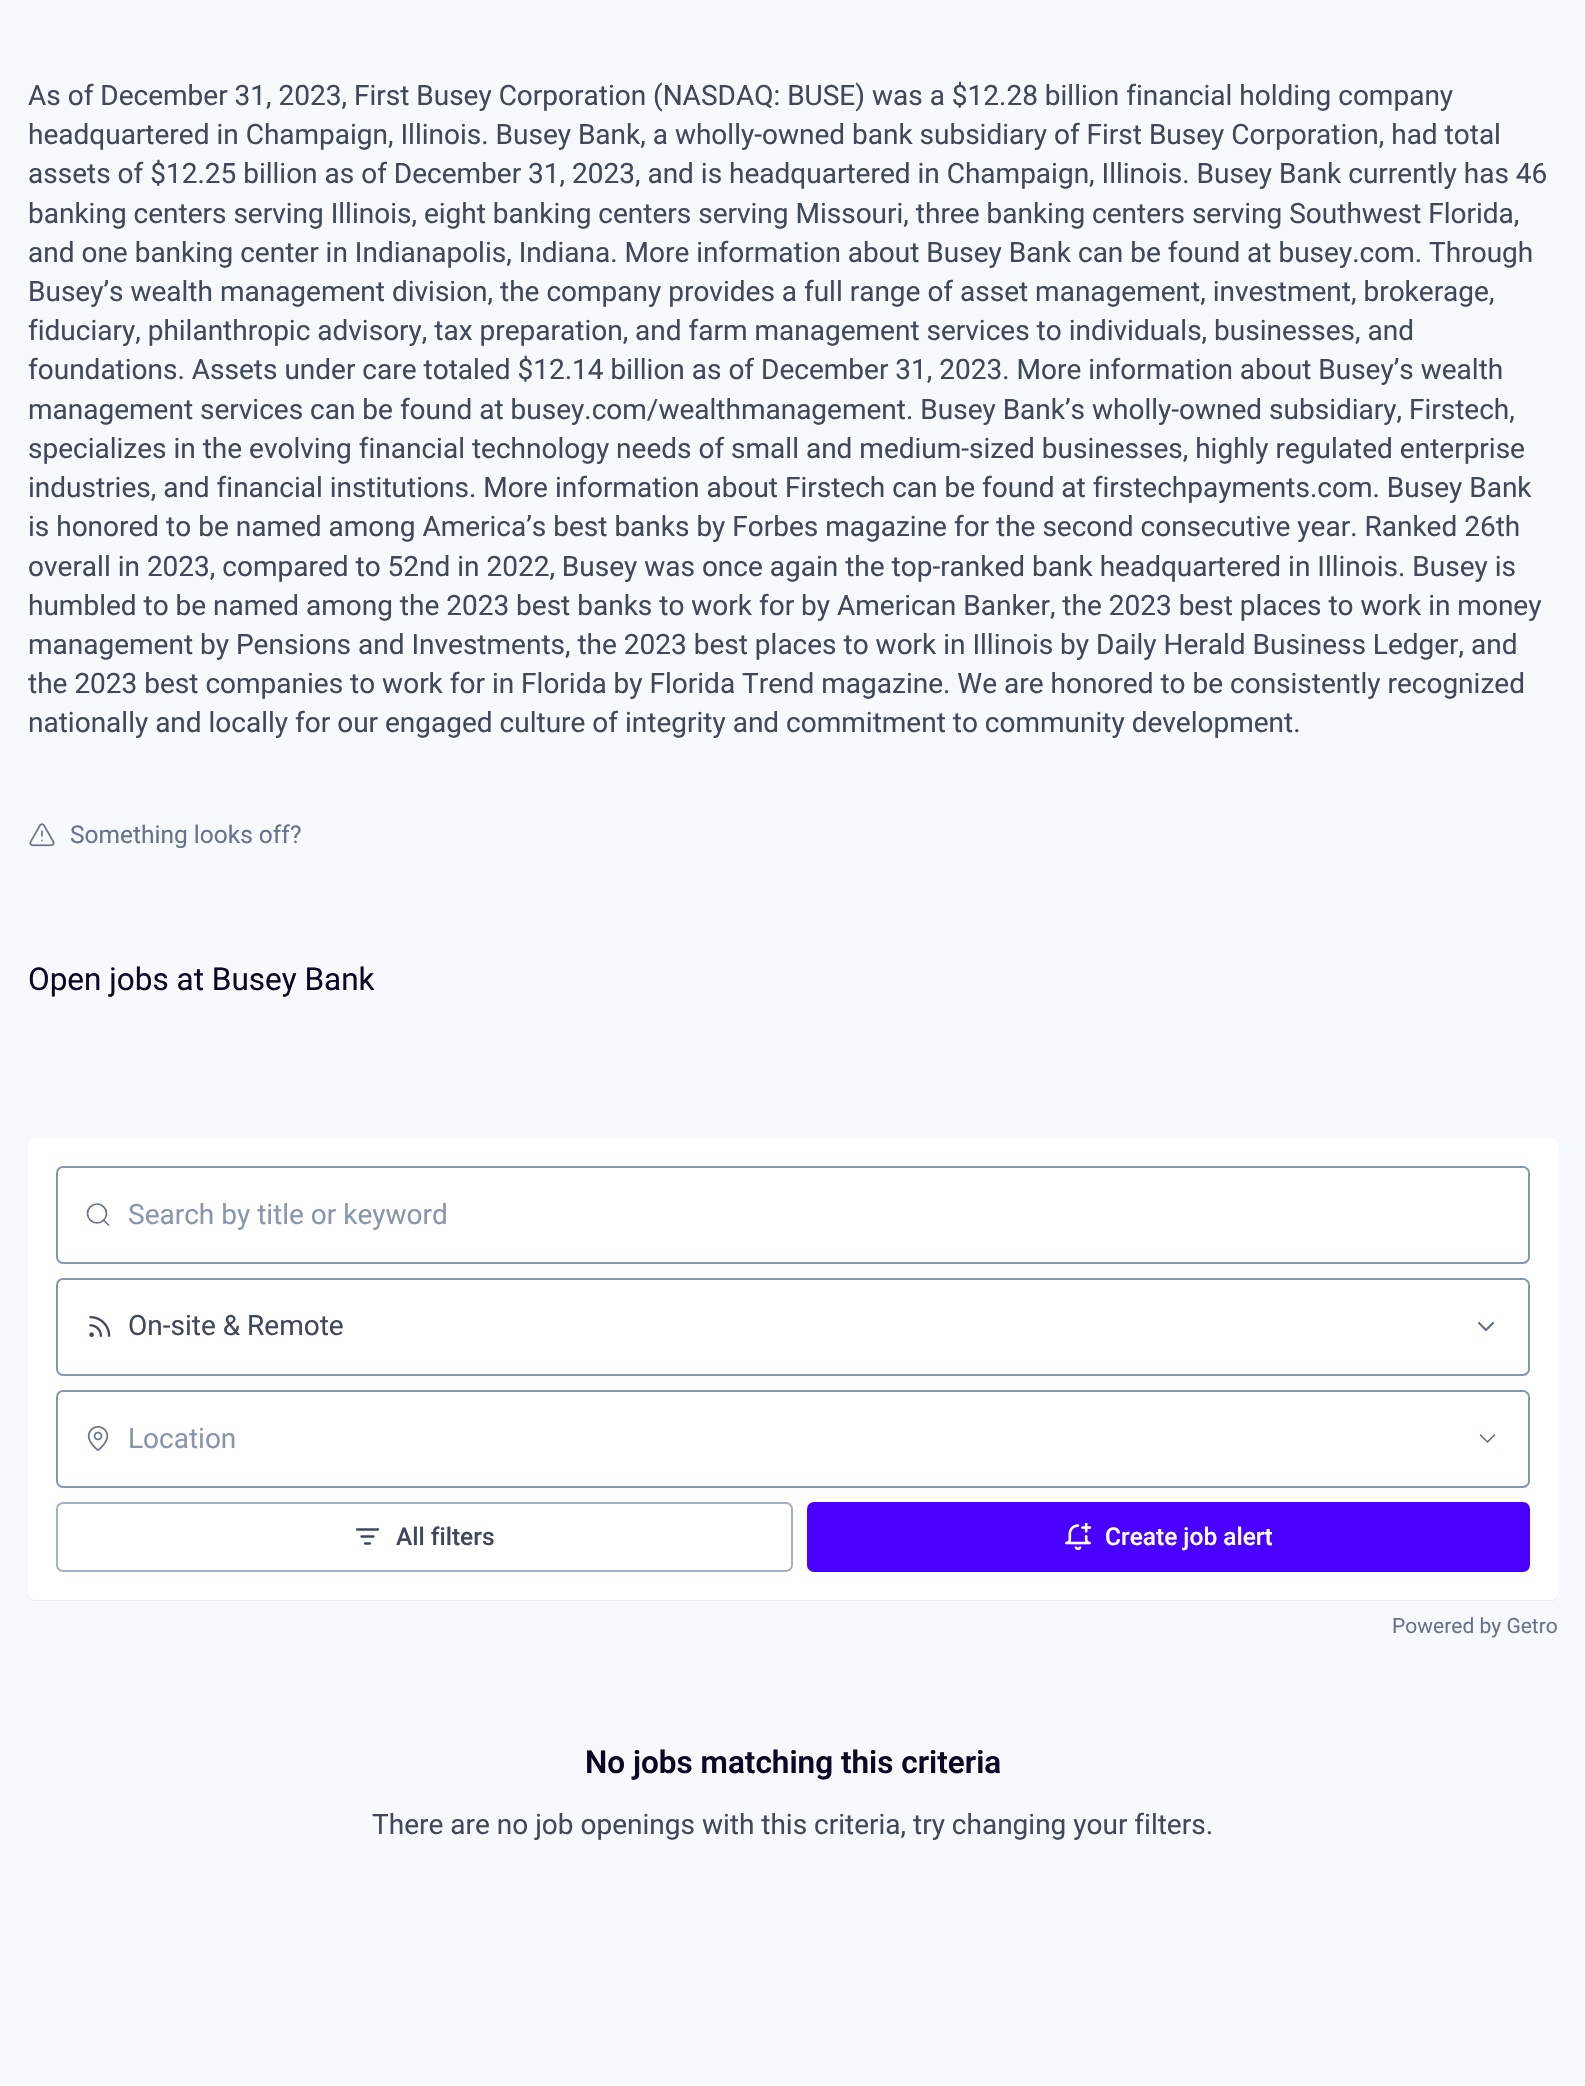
#include "include/core/SkBlurTypes.h"
#include "include/core/SkCanvas.h"
#include "include/core/SkData.h"
#include "include/core/SkFont.h"
#include "include/core/SkFontMgr.h"
#include "include/core/SkImage.h"
#include "include/core/SkMaskFilter.h"
#include "include/core/SkPaint.h"
#include "include/core/SkPathBuilder.h"
#include "include/core/SkTextBlob.h"
#include "include/effects/SkDashPathEffect.h"
#include "include/effects/SkGradientShader.h"
#include "include/utils/SkParsePath.h"

extern sk_sp<SkFontMgr> fontMgr;

void draw(SkCanvas* canvas) {
    SkPaint p;
    p.setAntiAlias(true);
    auto font = [&](const char* family, int weight, float size, bool italic = false) {
        SkFontStyle style(weight, SkFontStyle::kNormal_Width,
            italic ? SkFontStyle::kItalic_Slant : SkFontStyle::kUpright_Slant);
        SkFont result(fontMgr->matchFamilyStyle(family, style), size);
        result.setSubpixel(true);
        return result;
    };
    auto drawPhoto = [&](const char* path, float l, float t, float r, float b) {
        auto image = SkImages::DeferredFromEncodedData(SkData::MakeFromFileName(path));
        canvas->drawImageRect(image, SkRect::MakeLTRB(l, t, r, b), SkSamplingOptions());
    };
    canvas->clear(0xFFF7FAFC);
    auto font1 = font("Roboto", 400, 28);
    p.setColor(0xFF3F495A);
    {
        const struct { const char* s; float x, y; } items[] = {
            {"As of December 31, 2023, First Busey Corporation (NASDAQ: BUSE) was a $12.28 billion financial holding company", 28, 105},
            {"headquartered in Champaign, Illinois. Busey Bank, a wholly-owned bank subsidiary of First Busey Corporation, had total", 28, 144},
            {"assets of $12.25 billion as of December 31, 2023, and is headquartered in Champaign, Illinois. Busey Bank currently has 46", 28, 183},
            {"banking centers serving Illinois, eight banking centers serving Missouri, three banking centers serving Southwest Florida,", 28, 223},
            {"and one banking center in Indianapolis, Indiana. More information about Busey Bank can be found at busey.com. Through", 28, 262},
            {"Busey’s wealth management division, the company provides a full range of asset management, investment, brokerage,", 28, 301},
            {"fiduciary, philanthropic advisory, tax preparation, and farm management services to individuals, businesses, and", 28, 340},
            {"foundations. Assets under care totaled $12.14 billion as of December 31, 2023. More information about Busey’s wealth", 28, 379},
            {"management services can be found at busey.com/wealthmanagement. Busey Bank’s wholly-owned subsidiary, Firstech,", 28, 419},
            {"specializes in the evolving financial technology needs of small and medium-sized businesses, highly regulated enterprise", 28, 458},
            {"industries, and financial institutions. More information about Firstech can be found at firstechpayments.com. Busey Bank", 28, 497},
            {"is honored to be named among America’s best banks by Forbes magazine for the second consecutive year. Ranked 26th", 28, 536},
            {"overall in 2023, compared to 52nd in 2022, Busey was once again the top-ranked bank headquartered in Illinois. Busey is", 28, 576},
            {"humbled to be named among the 2023 best banks to work for by American Banker, the 2023 best places to work in money", 28, 615},
            {"management by Pensions and Investments, the 2023 best places to work in Illinois by Daily Herald Business Ledger, and", 28, 654},
            {"the 2023 best companies to work for in Florida by Florida Trend magazine. We are honored to be consistently recognized", 28, 693},
            {"nationally and locally for our engaged culture of integrity and commitment to community development.", 28, 732},
        };
        for (auto [s, x, y] : items) {
            canvas->drawString(s, x, y, font1, p);
        }
    }
    drawPhoto("media/1.png", 29, 823, 55, 847);
    auto font2 = font("Roboto", 400, 24.5f);
    p.setColor(0xFF67738B);
    canvas->drawString("Something looks off?", 70, 843, font2, p);
    auto font3 = font("Roboto", 400, 31.5f);
    p.setColor(0xFF090925);
    canvas->drawString("Open jobs at Busey Bank", 28, 990, font3, p);
    p.setColor(0xFFE8EBED);
    canvas->drawPath(SkPathBuilder().moveTo(28, 1592).lineTo(28, 1594).cubicTo(28, 1598, 31, 1601, 35, 1601).lineTo(1551, 1601).cubicTo(1555, 1601, 1558, 1598, 1558, 1594).lineTo(1558, 1146).lineTo(1557, 1143).lineTo(1558, 1592).cubicTo(1558, 1596, 1554, 1600, 1550, 1600).lineTo(35, 1600).cubicTo(31, 1600, 28, 1596, 28, 1592).close().detach(), p);
    p.setColor(0xFFFFFFFF);
    canvas->drawRoundRect(SkRect::MakeLTRB(28, 1138, 1558, 1600), 7, 7, p);
    p.setStyle(SkPaint::kStroke_Style);
    p.setStrokeWidth(2);
    p.setColor(0xFF8797AB);
    canvas->drawRoundRect(SkRect::MakeLTRB(57, 1167, 1529, 1263), 6, 6, p);
    p.setStrokeWidth(1.7f);
    p.setColor(0xFF67738B);
    canvas->drawCircle(97, 1213.5f, 9.5f, p);
    p.setStrokeCap(SkPaint::kRound_Cap);
    p.setStrokeJoin(SkPaint::kRound_Join);
    canvas->drawPath(SkPathBuilder().moveTo(108.5f, 1225).lineTo(103.5f, 1220).detach(), p);
    p.setStyle(SkPaint::kFill_Style);
    p.setColor(0xFF8797AB);
    canvas->drawString("Search by title or keyword", 128, 1224, font1, p);
    p.setStyle(SkPaint::kStroke_Style);
    p.setStrokeWidth(2);
    p.setStrokeCap(SkPaint::kButt_Cap);
    p.setStrokeJoin(SkPaint::kMiter_Join);
    canvas->drawRoundRect(SkRect::MakeLTRB(57, 1279, 1529, 1375), 6, 6, p);
    drawPhoto("media/2.png", 89, 1316, 111, 1337);
    p.setStyle(SkPaint::kFill_Style);
    p.setColor(0xFF3F495A);
    canvas->drawString("On-site & Remote", 128, 1335, font1, p);
    p.setStyle(SkPaint::kStroke_Style);
    p.setStrokeWidth(2.3f);
    p.setStrokeCap(SkPaint::kRound_Cap);
    p.setStrokeJoin(SkPaint::kRound_Join);
    p.setColor(0xFF67738B);
    canvas->drawPath(SkPathBuilder().moveTo(1479, 1323).lineTo(1486, 1330).lineTo(1493, 1323).detach(), p);
    p.setStrokeWidth(2);
    p.setStrokeCap(SkPaint::kButt_Cap);
    p.setStrokeJoin(SkPaint::kMiter_Join);
    p.setColor(0xFF8797AB);
    canvas->drawRoundRect(SkRect::MakeLTRB(57, 1391, 1529, 1487), 6, 6, p);
    drawPhoto("media/3.png", 87, 1426, 109, 1451);
    p.setStyle(SkPaint::kFill_Style);
    canvas->drawString("Location", 128, 1448, font1, p);
    p.setStyle(SkPaint::kStroke_Style);
    p.setStrokeWidth(1.7f);
    p.setStrokeCap(SkPaint::kRound_Cap);
    p.setStrokeJoin(SkPaint::kRound_Join);
    p.setColor(0xFF67738B);
    canvas->drawPath(SkPathBuilder().moveTo(1480.5f, 1435).lineTo(1487.5f, 1442).lineTo(1494.5f, 1435).detach(), p);
    p.setStrokeWidth(2);
    p.setStrokeCap(SkPaint::kButt_Cap);
    p.setStrokeJoin(SkPaint::kMiter_Join);
    p.setColor(0xFFA3B1C2);
    canvas->drawRoundRect(SkRect::MakeLTRB(57, 1503, 792, 1571), 6, 6, p);
    p.setStrokeWidth(2.3f);
    p.setStrokeCap(SkPaint::kRound_Cap);
    p.setStrokeJoin(SkPaint::kRound_Join);
    p.setColor(0xFF3F495A);
    canvas->drawPath(SkPathBuilder().moveTo(357, 1529.5f).lineTo(378, 1529.5f).moveTo(361.5f, 1536.5f).lineTo(373.5f, 1536.5f).moveTo(365, 1543.5f).lineTo(370, 1543.5f).detach(), p);
    auto font4 = font("Roboto", 500, 24.5f);
    p.setStyle(SkPaint::kFill_Style);
    canvas->drawString("All filters", 396, 1545, font4, p);
    p.setColor(0xFF4900FF);
    canvas->drawRoundRect(SkRect::MakeLTRB(808, 1503, 1529, 1571), 6, 6, p);
    p.setStyle(SkPaint::kStroke_Style);
    p.setStrokeWidth(2);
    p.setStrokeCap(SkPaint::kButt_Cap);
    p.setStrokeJoin(SkPaint::kMiter_Join);
    canvas->drawRoundRect(SkRect::MakeLTRB(808, 1503, 1529, 1571), 6, 6, p);
    drawPhoto("media/4.png", 1065, 1523, 1092, 1551);
    p.setStyle(SkPaint::kFill_Style);
    p.setColor(0xFFFFFFFF);
    canvas->drawString("Create job alert", 1105, 1545, font4, p);
    auto font5 = font("Roboto", 400, 21);
    p.setColor(0xFF67738B);
    canvas->drawString("Powered by Getro", 1392, 1633, font5, p);
    auto font6 = font("Roboto", 600, 31.5f);
    p.setColor(0xFF090925);
    canvas->drawString("No jobs matching this criteria", 585, 1773, font6, p);
    p.setColor(0xFF3F495A);
    canvas->drawString("There are no job openings with this criteria, try changing your filters.", 372, 1834, font1, p);
}
